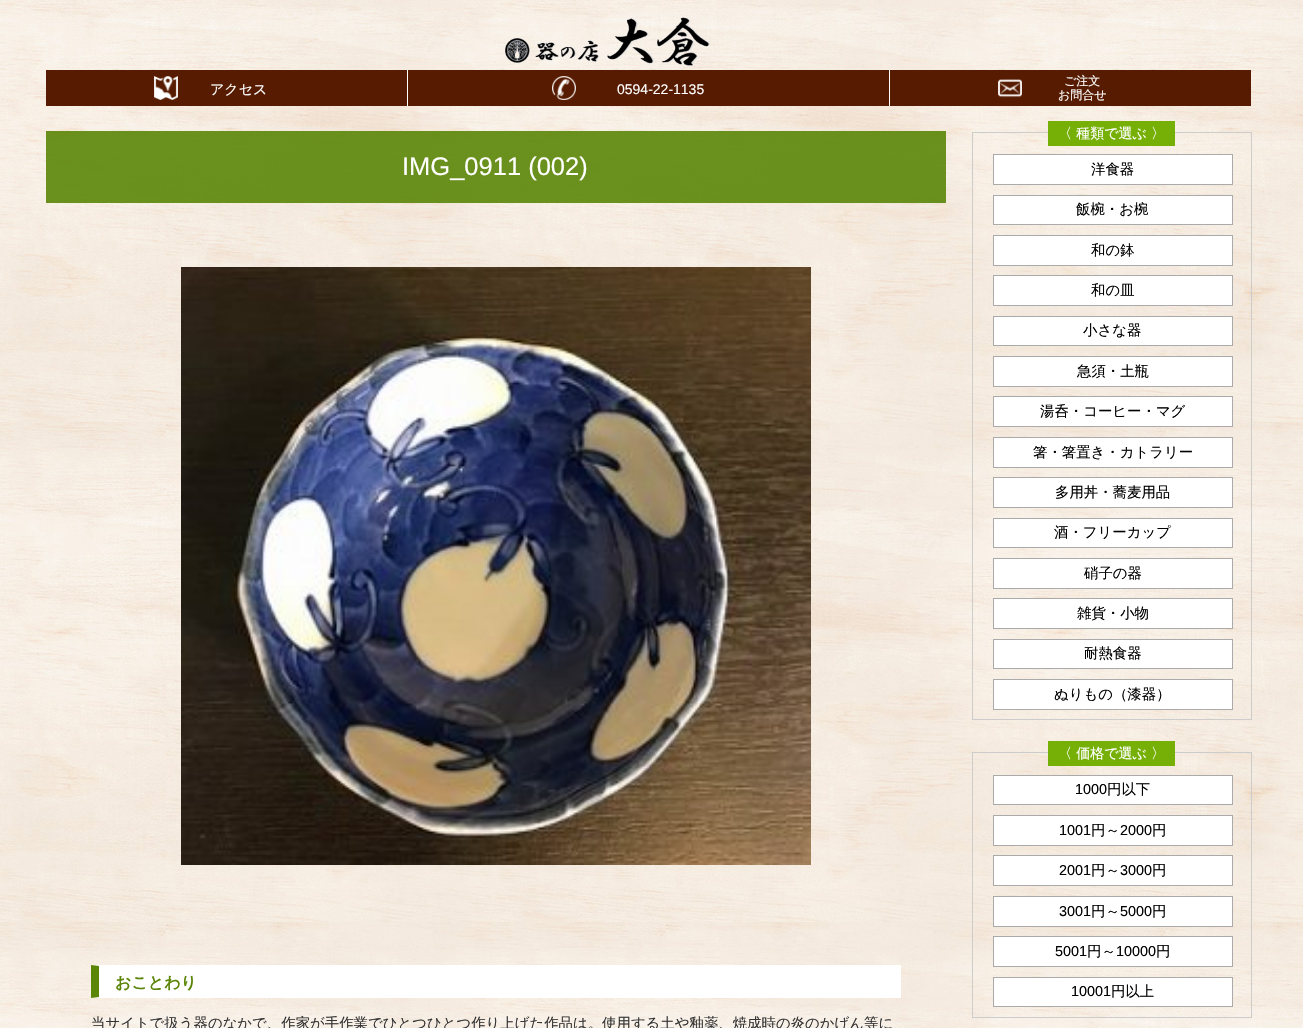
#include "include/core/SkBlurTypes.h"
#include "include/core/SkCanvas.h"
#include "include/core/SkData.h"
#include "include/core/SkFont.h"
#include "include/core/SkFontMgr.h"
#include "include/core/SkImage.h"
#include "include/core/SkMaskFilter.h"
#include "include/core/SkPaint.h"
#include "include/core/SkPathBuilder.h"
#include "include/core/SkTextBlob.h"
#include "include/effects/SkDashPathEffect.h"
#include "include/effects/SkGradientShader.h"
#include "include/utils/SkParsePath.h"

extern sk_sp<SkFontMgr> fontMgr;

void draw(SkCanvas* canvas) {
    SkPaint p;
    p.setAntiAlias(true);
    auto font = [&](const char* family, int weight, float size, bool italic = false) {
        SkFontStyle style(weight, SkFontStyle::kNormal_Width,
            italic ? SkFontStyle::kItalic_Slant : SkFontStyle::kUpright_Slant);
        SkFont result(fontMgr->matchFamilyStyle(family, style), size);
        result.setSubpixel(true);
        return result;
    };
    auto drawPhoto = [&](const char* path, float l, float t, float r, float b) {
        auto image = SkImages::DeferredFromEncodedData(SkData::MakeFromFileName(path));
        canvas->drawImageRect(image, SkRect::MakeLTRB(l, t, r, b), SkSamplingOptions());
    };
    canvas->clear(0xFFFFFFFF);
    drawPhoto("media/1.png", 0, 0, 1303, 1028);
    drawPhoto("media/2.png", 505, 17, 710, 66);
    p.setColor(0xFF561B01);
    canvas->drawRect(SkRect::MakeLTRB(46, 70, 407, 106), p);
    drawPhoto("media/3.png", 154, 76, 178, 100);
    auto font1 = font("WenQuanYi Zen Hei", 500, 14);
    p.setColor(0xFFFFFFFF);
    canvas->drawString("アクセス", 210, 94, font1, p);
    {
        const struct { float l, t, r, b; SkColor color; } items[] = {
            {408, 70, 889, 106, 0xFF561B01},
            {889, 70, 890, 106, 0xFFFFFFFF},
            {407, 70, 408, 106, 0xFFFFFFFF},
        };
        for (auto [l, t, r, b, color] : items) {
            p.setColor(color);
            canvas->drawRect(SkRect::MakeLTRB(l, t, r, b), p);
        }
    }
    drawPhoto("media/4.png", 552, 76, 576, 100);
    auto font2 = font("Liberation Sans", 400, 14);
    canvas->drawString("0594-22-1135", 617, 94, font2, p);
    p.setColor(0xFF561B01);
    canvas->drawRect(SkRect::MakeLTRB(890, 70, 1251, 106), p);
    drawPhoto("media/5.png", 998, 79, 1022, 98);
    auto font3 = font("WenQuanYi Zen Hei", 500, 12);
    p.setColor(0xFFFFFFFF);
    canvas->drawString("ご注文", 1064, 85, font3, p);
    canvas->drawString("お問合せ", 1058, 99, font3, p);
    p.setColor(0xE65A8507);
    canvas->drawRect(SkRect::MakeLTRB(46, 131, 946, 203), p);
    auto font4 = font("Liberation Sans", 400, 25.5f);
    p.setColor(0xFFFFFFFF);
    canvas->drawString("IMG_0911 (002)", 402, 175, font4, p);
    drawPhoto("media/6.png", 181, 267, 811, 865);
    canvas->drawRect(SkRect::MakeLTRB(99, 966, 900, 997), p);
    canvas->drawPath(SkPathBuilder().moveTo(91, 965).lineTo(901, 965).lineTo(900, 966).lineTo(99, 966).close().detach(), p);
    canvas->drawRect(SkRect::MakeLTRB(900, 965, 901, 998), p);
    canvas->drawPath(SkPathBuilder().moveTo(901, 998).lineTo(91, 998).lineTo(99, 997).lineTo(900, 997).close().detach(), p);
    p.setColor(0xFF5A8507);
    canvas->drawPath(SkPathBuilder().moveTo(91, 998).lineTo(91, 965).lineTo(99, 966).lineTo(99, 997).close().detach(), p);
    auto font5 = font("WenQuanYi Zen Hei", 700, 16);
    canvas->drawString("おことわり", 115, 988, font5, p);
    auto font6 = font("WenQuanYi Zen Hei", 500, 14.4f);
    p.setColor(0xFF333333);
    canvas->drawString("当サイトで扱う器のなかで、作家が手作業でひとつひとつ作り上げた作品は。使用する土や釉薬、焼成時の炎のかげん等に", 91, 1028, font6, p);
    p.setStyle(SkPaint::kStroke_Style);
    p.setStrokeWidth(1);
    p.setColor(0xFFCCCCCC);
    canvas->drawRect(SkRect::MakeLTRB(972.5f, 132.5f, 1251.5f, 719.5f), p);
    p.setStyle(SkPaint::kFill_Style);
    p.setColor(0xFF76B006);
    canvas->drawRect(SkRect::MakeLTRB(1048, 121, 1175, 146), p);
    p.setColor(0xFFFFFFFF);
    canvas->drawString("〈 種類で選ぶ 〉", 1058, 138, font1, p);
    canvas->drawRect(SkRect::MakeLTRB(993.5f, 154.5f, 1232.5f, 184.5f), p);
    p.setStyle(SkPaint::kStroke_Style);
    p.setColor(0xFFAAAAAA);
    canvas->drawRect(SkRect::MakeLTRB(993.5f, 154.5f, 1232.5f, 184.5f), p);
    p.setStyle(SkPaint::kFill_Style);
    p.setColor(0xFF000000);
    canvas->drawString("洋食器", 1091, 174, font6, p);
    p.setColor(0xFFFFFFFF);
    canvas->drawRect(SkRect::MakeLTRB(993.5f, 195.5f, 1232.5f, 224.5f), p);
    p.setStyle(SkPaint::kStroke_Style);
    p.setColor(0xFFAAAAAA);
    canvas->drawRect(SkRect::MakeLTRB(993.5f, 195.5f, 1232.5f, 224.5f), p);
    p.setStyle(SkPaint::kFill_Style);
    p.setColor(0xFF000000);
    canvas->drawString("飯椀・お椀", 1076, 214, font6, p);
    p.setColor(0xFFFFFFFF);
    canvas->drawRect(SkRect::MakeLTRB(993.5f, 235.5f, 1232.5f, 265.5f), p);
    p.setStyle(SkPaint::kStroke_Style);
    p.setColor(0xFFAAAAAA);
    canvas->drawRect(SkRect::MakeLTRB(993.5f, 235.5f, 1232.5f, 265.5f), p);
    p.setStyle(SkPaint::kFill_Style);
    p.setColor(0xFF000000);
    canvas->drawString("和の鉢", 1091, 255, font6, p);
    p.setColor(0xFFFFFFFF);
    canvas->drawRect(SkRect::MakeLTRB(993.5f, 275.5f, 1232.5f, 305.5f), p);
    p.setStyle(SkPaint::kStroke_Style);
    p.setColor(0xFFAAAAAA);
    canvas->drawRect(SkRect::MakeLTRB(993.5f, 275.5f, 1232.5f, 305.5f), p);
    p.setStyle(SkPaint::kFill_Style);
    p.setColor(0xFF000000);
    canvas->drawString("和の皿", 1091, 295, font6, p);
    p.setColor(0xFFFFFFFF);
    canvas->drawRect(SkRect::MakeLTRB(993.5f, 316.5f, 1232.5f, 345.5f), p);
    p.setStyle(SkPaint::kStroke_Style);
    p.setColor(0xFFAAAAAA);
    canvas->drawRect(SkRect::MakeLTRB(993.5f, 316.5f, 1232.5f, 345.5f), p);
    p.setStyle(SkPaint::kFill_Style);
    p.setColor(0xFF000000);
    canvas->drawString("小さな器", 1083, 335, font6, p);
    p.setColor(0xFFFFFFFF);
    canvas->drawRect(SkRect::MakeLTRB(993.5f, 356.5f, 1232.5f, 386.5f), p);
    p.setStyle(SkPaint::kStroke_Style);
    p.setColor(0xFFAAAAAA);
    canvas->drawRect(SkRect::MakeLTRB(993.5f, 356.5f, 1232.5f, 386.5f), p);
    p.setStyle(SkPaint::kFill_Style);
    p.setColor(0xFF000000);
    canvas->drawString("急須・土瓶", 1077, 376, font6, p);
    p.setColor(0xFFFFFFFF);
    canvas->drawRect(SkRect::MakeLTRB(993.5f, 396.5f, 1232.5f, 426.5f), p);
    p.setStyle(SkPaint::kStroke_Style);
    p.setColor(0xFFAAAAAA);
    canvas->drawRect(SkRect::MakeLTRB(993.5f, 396.5f, 1232.5f, 426.5f), p);
    p.setStyle(SkPaint::kFill_Style);
    p.setColor(0xFF000000);
    canvas->drawString("湯呑・コーヒー・マグ", 1040, 416, font6, p);
    p.setColor(0xFFFFFFFF);
    canvas->drawRect(SkRect::MakeLTRB(993.5f, 437.5f, 1232.5f, 467.5f), p);
    p.setStyle(SkPaint::kStroke_Style);
    p.setColor(0xFFAAAAAA);
    canvas->drawRect(SkRect::MakeLTRB(993.5f, 437.5f, 1232.5f, 467.5f), p);
    p.setStyle(SkPaint::kFill_Style);
    p.setColor(0xFF000000);
    canvas->drawString("箸・箸置き・カトラリー", 1033, 457, font6, p);
    p.setColor(0xFFFFFFFF);
    canvas->drawRect(SkRect::MakeLTRB(993.5f, 477.5f, 1232.5f, 507.5f), p);
    p.setStyle(SkPaint::kStroke_Style);
    p.setColor(0xFFAAAAAA);
    canvas->drawRect(SkRect::MakeLTRB(993.5f, 477.5f, 1232.5f, 507.5f), p);
    p.setStyle(SkPaint::kFill_Style);
    p.setColor(0xFF000000);
    canvas->drawString("多用丼・蕎麦用品", 1055, 497, font6, p);
    p.setColor(0xFFFFFFFF);
    canvas->drawRect(SkRect::MakeLTRB(993.5f, 518.5f, 1232.5f, 547.5f), p);
    p.setStyle(SkPaint::kStroke_Style);
    p.setColor(0xFFAAAAAA);
    canvas->drawRect(SkRect::MakeLTRB(993.5f, 518.5f, 1232.5f, 547.5f), p);
    p.setStyle(SkPaint::kFill_Style);
    p.setColor(0xFF000000);
    canvas->drawString("酒・フリーカップ", 1054, 537, font6, p);
    p.setColor(0xFFFFFFFF);
    canvas->drawRect(SkRect::MakeLTRB(993.5f, 558.5f, 1232.5f, 588.5f), p);
    p.setStyle(SkPaint::kStroke_Style);
    p.setColor(0xFFAAAAAA);
    canvas->drawRect(SkRect::MakeLTRB(993.5f, 558.5f, 1232.5f, 588.5f), p);
    p.setStyle(SkPaint::kFill_Style);
    p.setColor(0xFF000000);
    canvas->drawString("硝子の器", 1084, 578, font6, p);
    p.setColor(0xFFFFFFFF);
    canvas->drawRect(SkRect::MakeLTRB(993.5f, 598.5f, 1232.5f, 628.5f), p);
    p.setStyle(SkPaint::kStroke_Style);
    p.setColor(0xFFAAAAAA);
    canvas->drawRect(SkRect::MakeLTRB(993.5f, 598.5f, 1232.5f, 628.5f), p);
    p.setStyle(SkPaint::kFill_Style);
    p.setColor(0xFF000000);
    canvas->drawString("雑貨・小物", 1077, 618, font6, p);
    p.setColor(0xFFFFFFFF);
    canvas->drawRect(SkRect::MakeLTRB(993.5f, 639.5f, 1232.5f, 668.5f), p);
    p.setStyle(SkPaint::kStroke_Style);
    p.setColor(0xFFAAAAAA);
    canvas->drawRect(SkRect::MakeLTRB(993.5f, 639.5f, 1232.5f, 668.5f), p);
    p.setStyle(SkPaint::kFill_Style);
    p.setColor(0xFF000000);
    canvas->drawString("耐熱食器", 1084, 658, font6, p);
    p.setColor(0xFFFFFFFF);
    canvas->drawRect(SkRect::MakeLTRB(993.5f, 679.5f, 1232.5f, 709.5f), p);
    p.setStyle(SkPaint::kStroke_Style);
    p.setColor(0xFFAAAAAA);
    canvas->drawRect(SkRect::MakeLTRB(993.5f, 679.5f, 1232.5f, 709.5f), p);
    p.setStyle(SkPaint::kFill_Style);
    p.setColor(0xFF000000);
    canvas->drawString("ぬりもの（漆器）", 1054, 699, font6, p);
    p.setStyle(SkPaint::kStroke_Style);
    p.setColor(0xFFCCCCCC);
    canvas->drawRect(SkRect::MakeLTRB(972.5f, 752.5f, 1251.5f, 1017.5f), p);
    p.setStyle(SkPaint::kFill_Style);
    p.setColor(0xFF76B006);
    canvas->drawRect(SkRect::MakeLTRB(1048, 741, 1175, 766), p);
    p.setColor(0xFFFFFFFF);
    canvas->drawString("〈 価格で選ぶ 〉", 1058, 758, font1, p);
    canvas->drawRect(SkRect::MakeLTRB(993.5f, 775.5f, 1232.5f, 804.5f), p);
    p.setStyle(SkPaint::kStroke_Style);
    p.setColor(0xFFAAAAAA);
    canvas->drawRect(SkRect::MakeLTRB(993.5f, 775.5f, 1232.5f, 804.5f), p);
    auto font7 = font("Liberation Sans", 400, 14.4f);
    p.setStyle(SkPaint::kFill_Style);
    p.setColor(0xFF000000);
    canvas->drawString("1000", 1075, 794, font7, p);
    canvas->drawString("円以下", 1107, 794, font6, p);
    p.setColor(0xFFFFFFFF);
    canvas->drawRect(SkRect::MakeLTRB(993.5f, 815.5f, 1232.5f, 845.5f), p);
    p.setStyle(SkPaint::kStroke_Style);
    p.setColor(0xFFAAAAAA);
    canvas->drawRect(SkRect::MakeLTRB(993.5f, 815.5f, 1232.5f, 845.5f), p);
    p.setStyle(SkPaint::kFill_Style);
    p.setColor(0xFF000000);
    canvas->drawString("1001", 1059, 835, font7, p);
    canvas->drawString("円～", 1091, 835, font6, p);
    canvas->drawString("2000", 1120, 835, font7, p);
    canvas->drawString("円", 1152, 835, font6, p);
    p.setColor(0xFFFFFFFF);
    canvas->drawRect(SkRect::MakeLTRB(993.5f, 855.5f, 1232.5f, 885.5f), p);
    p.setStyle(SkPaint::kStroke_Style);
    p.setColor(0xFFAAAAAA);
    canvas->drawRect(SkRect::MakeLTRB(993.5f, 855.5f, 1232.5f, 885.5f), p);
    p.setStyle(SkPaint::kFill_Style);
    p.setColor(0xFF000000);
    canvas->drawString("2001", 1059, 875, font7, p);
    canvas->drawString("円～", 1091, 875, font6, p);
    canvas->drawString("3000", 1120, 875, font7, p);
    canvas->drawString("円", 1152, 875, font6, p);
    p.setColor(0xFFFFFFFF);
    canvas->drawRect(SkRect::MakeLTRB(993.5f, 896.5f, 1232.5f, 926.5f), p);
    p.setStyle(SkPaint::kStroke_Style);
    p.setColor(0xFFAAAAAA);
    canvas->drawRect(SkRect::MakeLTRB(993.5f, 896.5f, 1232.5f, 926.5f), p);
    p.setStyle(SkPaint::kFill_Style);
    p.setColor(0xFF000000);
    canvas->drawString("3001", 1059, 916, font7, p);
    canvas->drawString("円～", 1091, 916, font6, p);
    canvas->drawString("5000", 1120, 916, font7, p);
    canvas->drawString("円", 1152, 916, font6, p);
    p.setColor(0xFFFFFFFF);
    canvas->drawRect(SkRect::MakeLTRB(993.5f, 936.5f, 1232.5f, 966.5f), p);
    p.setStyle(SkPaint::kStroke_Style);
    p.setColor(0xFFAAAAAA);
    canvas->drawRect(SkRect::MakeLTRB(993.5f, 936.5f, 1232.5f, 966.5f), p);
    p.setStyle(SkPaint::kFill_Style);
    p.setColor(0xFF000000);
    canvas->drawString("5001", 1055, 956, font7, p);
    canvas->drawString("円～", 1087, 956, font6, p);
    canvas->drawString("10000", 1116, 956, font7, p);
    canvas->drawString("円", 1156, 956, font6, p);
    p.setColor(0xFFFFFFFF);
    canvas->drawRect(SkRect::MakeLTRB(993.5f, 977.5f, 1232.5f, 1006.5f), p);
    p.setStyle(SkPaint::kStroke_Style);
    p.setColor(0xFFAAAAAA);
    canvas->drawRect(SkRect::MakeLTRB(993.5f, 977.5f, 1232.5f, 1006.5f), p);
    p.setStyle(SkPaint::kFill_Style);
    p.setColor(0xFF000000);
    canvas->drawString("10001", 1071, 996, font7, p);
    canvas->drawString("円以上", 1111, 996, font6, p);
}
